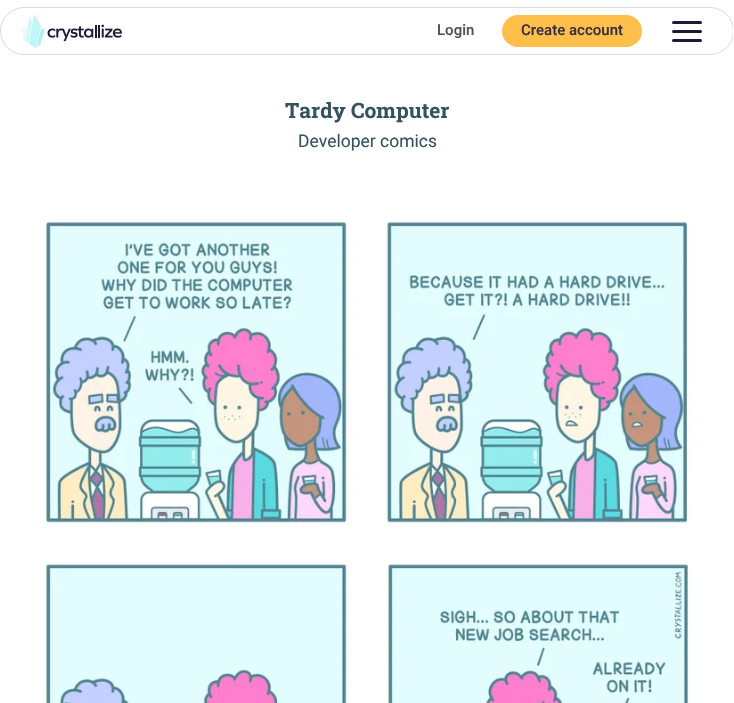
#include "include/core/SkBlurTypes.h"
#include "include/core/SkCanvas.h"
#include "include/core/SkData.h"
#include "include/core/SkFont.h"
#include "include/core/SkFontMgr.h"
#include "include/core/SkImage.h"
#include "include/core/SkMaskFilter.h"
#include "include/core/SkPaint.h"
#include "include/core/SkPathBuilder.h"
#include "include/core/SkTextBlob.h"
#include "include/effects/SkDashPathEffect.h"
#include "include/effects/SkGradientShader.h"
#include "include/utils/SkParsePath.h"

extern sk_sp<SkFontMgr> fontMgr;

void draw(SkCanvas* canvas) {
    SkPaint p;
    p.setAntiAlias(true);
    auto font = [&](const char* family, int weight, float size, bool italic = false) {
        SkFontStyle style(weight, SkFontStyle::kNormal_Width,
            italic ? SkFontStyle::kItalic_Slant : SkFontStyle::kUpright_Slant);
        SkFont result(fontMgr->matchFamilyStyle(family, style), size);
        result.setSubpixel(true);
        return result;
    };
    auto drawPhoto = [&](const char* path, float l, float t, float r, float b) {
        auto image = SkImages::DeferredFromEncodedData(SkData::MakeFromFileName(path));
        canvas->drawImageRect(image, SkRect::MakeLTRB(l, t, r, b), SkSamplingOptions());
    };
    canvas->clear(0xFFFFFFFF);
    p.setStyle(SkPaint::kStroke_Style);
    p.setStrokeWidth(1);
    p.setColor(0xFFD9DADE);
    canvas->drawRoundRect(SkRect::MakeLTRB(0.5f, 7.5f, 733.5f, 54.5f), 23.5f, 23.5f, p);
    drawPhoto("media/1.png", 22, 14, 122, 48);
    auto font1 = font("Roboto", 500, 15);
    p.setStyle(SkPaint::kFill_Style);
    p.setColor(0xFF4C505B);
    canvas->drawString("Login", 437, 35, font1, p);
    p.setColor(0xFFFFBF4A);
    canvas->drawRoundRect(SkRect::MakeLTRB(502, 15, 642, 47), 16, 16, p);
    p.setColor(0xFF342C3F);
    canvas->drawString("Create account", 521, 35, font1, p);
    p.setColor(0xFF1F1934);
    canvas->drawRoundRect(SkRect::MakeLTRB(672, 21, 702, 24), 1.5f, 1.5f, p);
    canvas->drawRoundRect(SkRect::MakeLTRB(672, 30, 702, 33), 1.5f, 1.5f, p);
    canvas->drawRoundRect(SkRect::MakeLTRB(672, 39, 702, 42), 1.5f, 1.5f, p);
    p.setColor(0xFFFFFFFF);
    canvas->drawRoundRect(SkRect::MakeLTRB(733, 8, 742, 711), 8, 8, p);
    auto font2 = font("Roboto Slab", 700, 21);
    p.setColor(0xFF34535B);
    canvas->drawString("Tardy Computer", 285, 118, font2, p);
    auto font3 = font("Roboto", 400, 17.5f);
    canvas->drawString("Developer comics", 298, 147, font3, p);
    drawPhoto("media/2.png", 45, 221, 689, 703);
}
